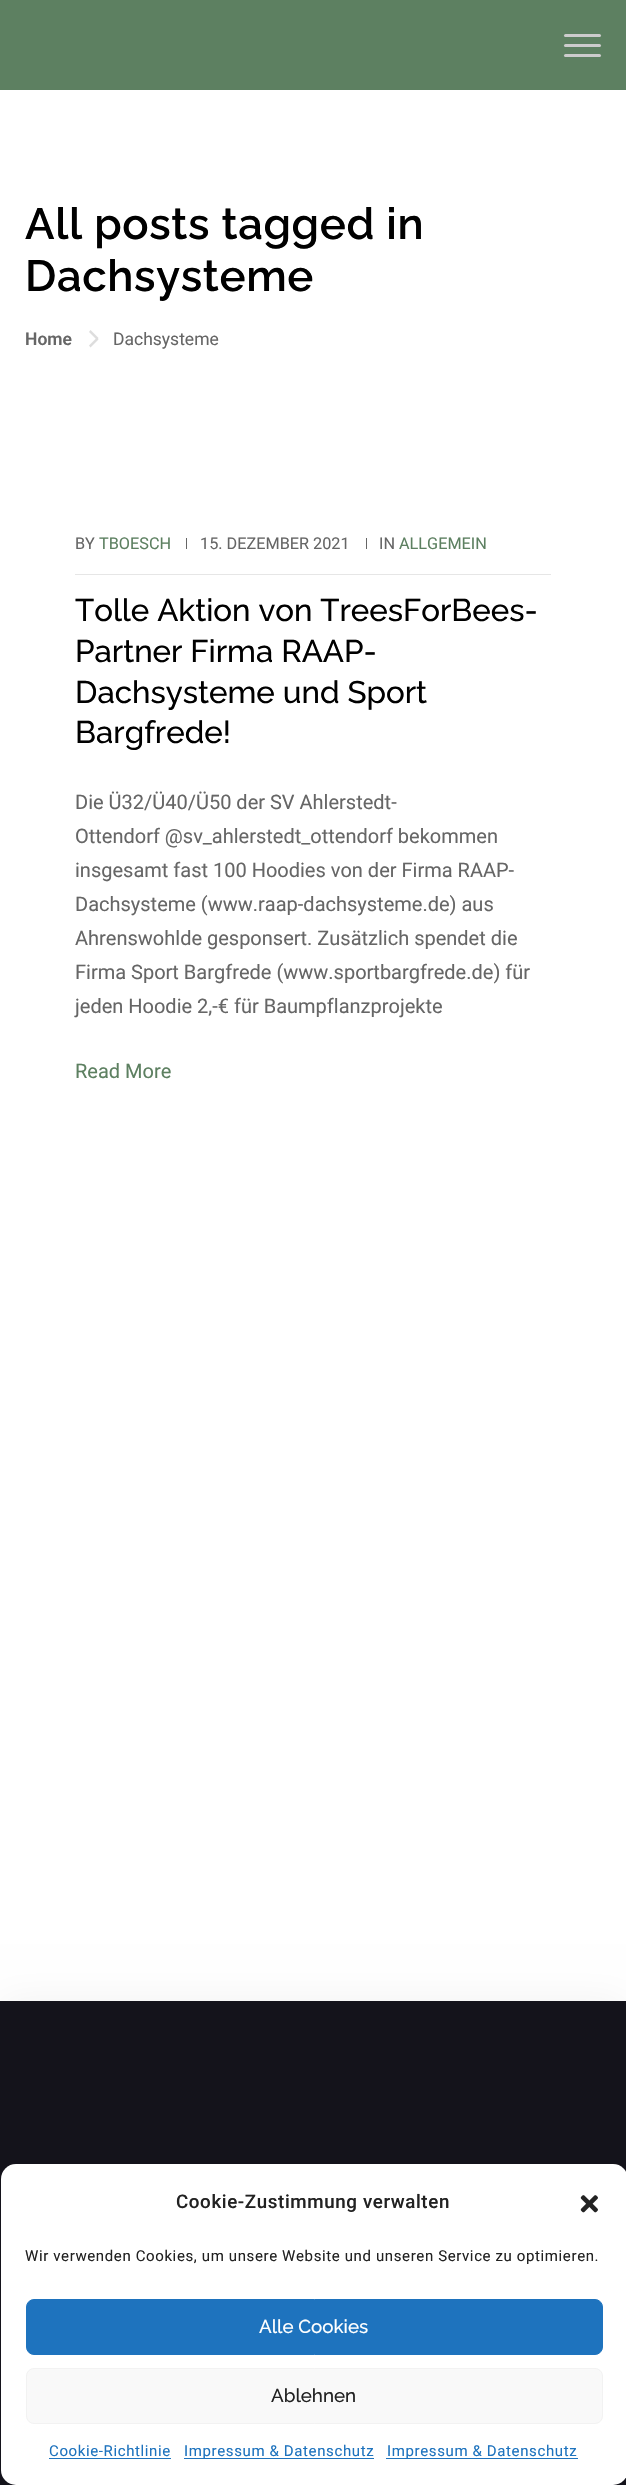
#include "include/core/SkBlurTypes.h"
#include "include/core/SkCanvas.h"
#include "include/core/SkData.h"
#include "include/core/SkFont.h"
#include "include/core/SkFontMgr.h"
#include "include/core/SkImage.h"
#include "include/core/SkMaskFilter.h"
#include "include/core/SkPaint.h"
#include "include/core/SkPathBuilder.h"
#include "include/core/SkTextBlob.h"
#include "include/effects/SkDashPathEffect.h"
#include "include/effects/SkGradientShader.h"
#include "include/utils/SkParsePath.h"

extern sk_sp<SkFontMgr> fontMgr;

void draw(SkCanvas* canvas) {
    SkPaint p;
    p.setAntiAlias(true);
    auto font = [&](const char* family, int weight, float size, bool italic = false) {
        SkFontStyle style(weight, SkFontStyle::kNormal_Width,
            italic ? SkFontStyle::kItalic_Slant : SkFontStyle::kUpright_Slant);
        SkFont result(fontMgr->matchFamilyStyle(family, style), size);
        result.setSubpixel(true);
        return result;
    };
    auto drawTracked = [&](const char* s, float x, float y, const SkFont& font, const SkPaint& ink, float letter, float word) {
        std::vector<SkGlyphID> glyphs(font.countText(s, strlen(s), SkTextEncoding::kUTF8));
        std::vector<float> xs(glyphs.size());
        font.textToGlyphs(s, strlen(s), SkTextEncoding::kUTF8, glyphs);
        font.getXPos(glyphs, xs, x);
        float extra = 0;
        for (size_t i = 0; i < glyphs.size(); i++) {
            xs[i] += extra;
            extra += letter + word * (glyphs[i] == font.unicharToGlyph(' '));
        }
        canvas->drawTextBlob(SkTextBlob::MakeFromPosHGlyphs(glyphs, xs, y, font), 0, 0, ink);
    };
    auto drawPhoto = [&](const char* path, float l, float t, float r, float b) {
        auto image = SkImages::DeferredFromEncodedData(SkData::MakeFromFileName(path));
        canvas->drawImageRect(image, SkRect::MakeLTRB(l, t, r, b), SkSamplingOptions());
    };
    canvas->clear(0xFFFFFFFF);
    p.setColor(0xFF5D8061);
    canvas->drawRect(SkRect::MakeLTRB(0, 0, 626, 90), p);
    p.setColor(0xFFCCCCCC);
    canvas->drawRoundRect(SkRect::MakeLTRB(564, 54, 601, 57), 1.5f, 1.5f, p);
    canvas->drawRoundRect(SkRect::MakeLTRB(564, 34, 601, 37), 1.5f, 1.5f, p);
    canvas->drawRoundRect(SkRect::MakeLTRB(564, 44, 601, 47), 1.5f, 1.5f, p);
    auto font1 = font("Raleway", 600, 43.75f);
    p.setColor(0xFF000000);
    drawTracked("All posts tagged in", 25, 239, font1, p, 0.62f, 0);
    drawTracked("Dachsysteme", 25, 291, font1, p, 0.62f, 0);
    auto font2 = font("Roboto", 600, 17.5f);
    p.setColor(0xFF666666);
    canvas->drawString("Home", 25, 345, font2, p);
    p.setColor(0xFFDDDDDD);
    canvas->drawPath(SkPathBuilder().moveTo(98.5f, 339.5f).lineTo(90.5f, 347.5f).lineTo(89, 345.5f).lineTo(97, 337.5f).close().detach(), p);
    canvas->drawPath(SkPathBuilder().moveTo(90.5f, 330).lineTo(98.5f, 338).lineTo(97, 340).lineTo(89, 332).close().detach(), p);
    auto font3 = font("Roboto", 400, 17.5f);
    p.setColor(0xFF666666);
    canvas->drawString("Dachsysteme", 113, 345, font3, p);
    p.setColor(0xFFE6E6E6);
    canvas->drawRect(SkRect::MakeLTRB(75, 574, 551, 575), p);
    auto font4 = font("Roboto", 400, 16.25f);
    p.setColor(0xFF666666);
    canvas->drawString("BY", 75, 549, font4, p);
    p.setColor(0xFF5D8061);
    canvas->drawString("TBOESCH", 99, 549, font4, p);
    p.setColor(0xFF666666);
    canvas->drawRect(SkRect::MakeLTRB(186, 538, 187, 549), p);
    canvas->drawString("15. DEZEMBER 2021", 200, 549, font4, p);
    canvas->drawRect(SkRect::MakeLTRB(366, 538, 367, 549), p);
    canvas->drawString("IN", 379, 549, font4, p);
    p.setColor(0xFF5D8061);
    canvas->drawString("ALLGEMEIN", 399, 549, font4, p);
    auto font5 = font("Raleway", 500, 31.25f);
    p.setColor(0xFF000000);
    {
        const struct { const char* s; float x, y; } items[] = {
            {"Tolle Aktion von TreesForBees-", 75, 621},
            {"Partner Firma RAAP-", 75, 662},
            {"Dachsysteme und Sport", 75, 703},
            {"Bargfrede!", 75, 743},
        };
        for (auto [s, x, y] : items) {
            canvas->drawString(s, x, y, font5, p);
        }
    }
    auto font6 = font("Roboto", 400, 20);
    p.setColor(0xFF666666);
    {
        const struct { const char* s; float x, y; } items[] = {
            {"Die Ü32/Ü40/Ü50 der SV Ahlerstedt-", 75, 809},
            {"Ottendorf @sv_ahlerstedt_ottendorf bekommen", 75, 843},
            {"insgesamt fast 100 Hoodies von der Firma RAAP-", 75, 877},
            {"Dachsysteme (www.raap-dachsysteme.de) aus", 75, 911},
            {"Ahrenswohlde gesponsert. Zusätzlich spendet die", 75, 945},
            {"Firma Sport Bargfrede (www.sportbargfrede.de) für", 75, 979},
            {"jeden Hoodie 2,-€ für Baumpflanzprojekte", 75, 1013},
        };
        for (auto [s, x, y] : items) {
            canvas->drawString(s, x, y, font6, p);
        }
    }
    p.setColor(0xFF5D8061);
    canvas->drawString("Read More", 75, 1078, font6, p);
    p.setColor(0x0D000000);
    p.setMaskFilter(SkMaskFilter::MakeBlur(kNormal_SkBlurStyle, 19));
    canvas->drawRect(SkRect::MakeLTRB(0, 2001, 626, 2485), p);
    p.setMaskFilter(nullptr);
    p.setColor(0xFF14131B);
    canvas->drawRect(SkRect::MakeLTRB(0, 2001, 626, 2485), p);
    p.setColor(0xFFFFFFFF);
    canvas->drawRoundRect(SkRect::MakeLTRB(1, 2164, 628, 2485), 15, 15, p);
    auto font7 = font("Roboto", 500, 18.75f);
    p.setColor(0xFF222222);
    drawTracked("Cookie-Zustimmung verwalten", 176, 2208, font7, p, 0.62f, 0);
    drawPhoto("media/1.png", 580, 2195, 598, 2213);
    auto font8 = font("Roboto", 400, 15);
    drawTracked("Wir verwenden Cookies, um unsere Website und unseren Service zu optimieren.", 25, 2261, font8, p, 0.62f, 0);
    p.setColor(0xFF1E73BE);
    canvas->drawRoundRect(SkRect::MakeLTRB(26.5f, 2299.5f, 602.5f, 2354.5f), 7.5f, 7.5f, p);
    p.setStyle(SkPaint::kStroke_Style);
    p.setStrokeWidth(1);
    canvas->drawRoundRect(SkRect::MakeLTRB(26.5f, 2299.5f, 602.5f, 2354.5f), 7.5f, 7.5f, p);
    auto font9 = font("Raleway", 500, 18.75f);
    p.setStyle(SkPaint::kFill_Style);
    p.setColor(0xFFFFFFFF);
    canvas->drawString("Alle Cookies", 259, 2333, font9, p);
    p.setColor(0xFFF9F9F9);
    canvas->drawRoundRect(SkRect::MakeLTRB(26.5f, 2368.5f, 602.5f, 2423.5f), 7.5f, 7.5f, p);
    p.setStyle(SkPaint::kStroke_Style);
    p.setColor(0xFFF2F2F2);
    canvas->drawRoundRect(SkRect::MakeLTRB(26.5f, 2368.5f, 602.5f, 2423.5f), 7.5f, 7.5f, p);
    p.setStyle(SkPaint::kFill_Style);
    p.setColor(0xFF222222);
    canvas->drawString("Ablehnen", 271, 2402, font9, p);
    p.setColor(0xFF1E73BE);
    drawTracked("Cookie-Richtlinie", 49, 2456, font8, p, 0.62f, 0);
    canvas->drawRect(SkRect::MakeLTRB(49, 2458, 171, 2459), p);
    canvas->drawRect(SkRect::MakeLTRB(184, 2458, 374, 2459), p);
    drawTracked("Impressum & Datenschutz", 184, 2456, font8, p, 0.62f, 0);
    canvas->drawRect(SkRect::MakeLTRB(386, 2458, 578, 2459), p);
    drawTracked("Impressum & Datenschutz", 387, 2456, font8, p, 0.62f, 0);
}
